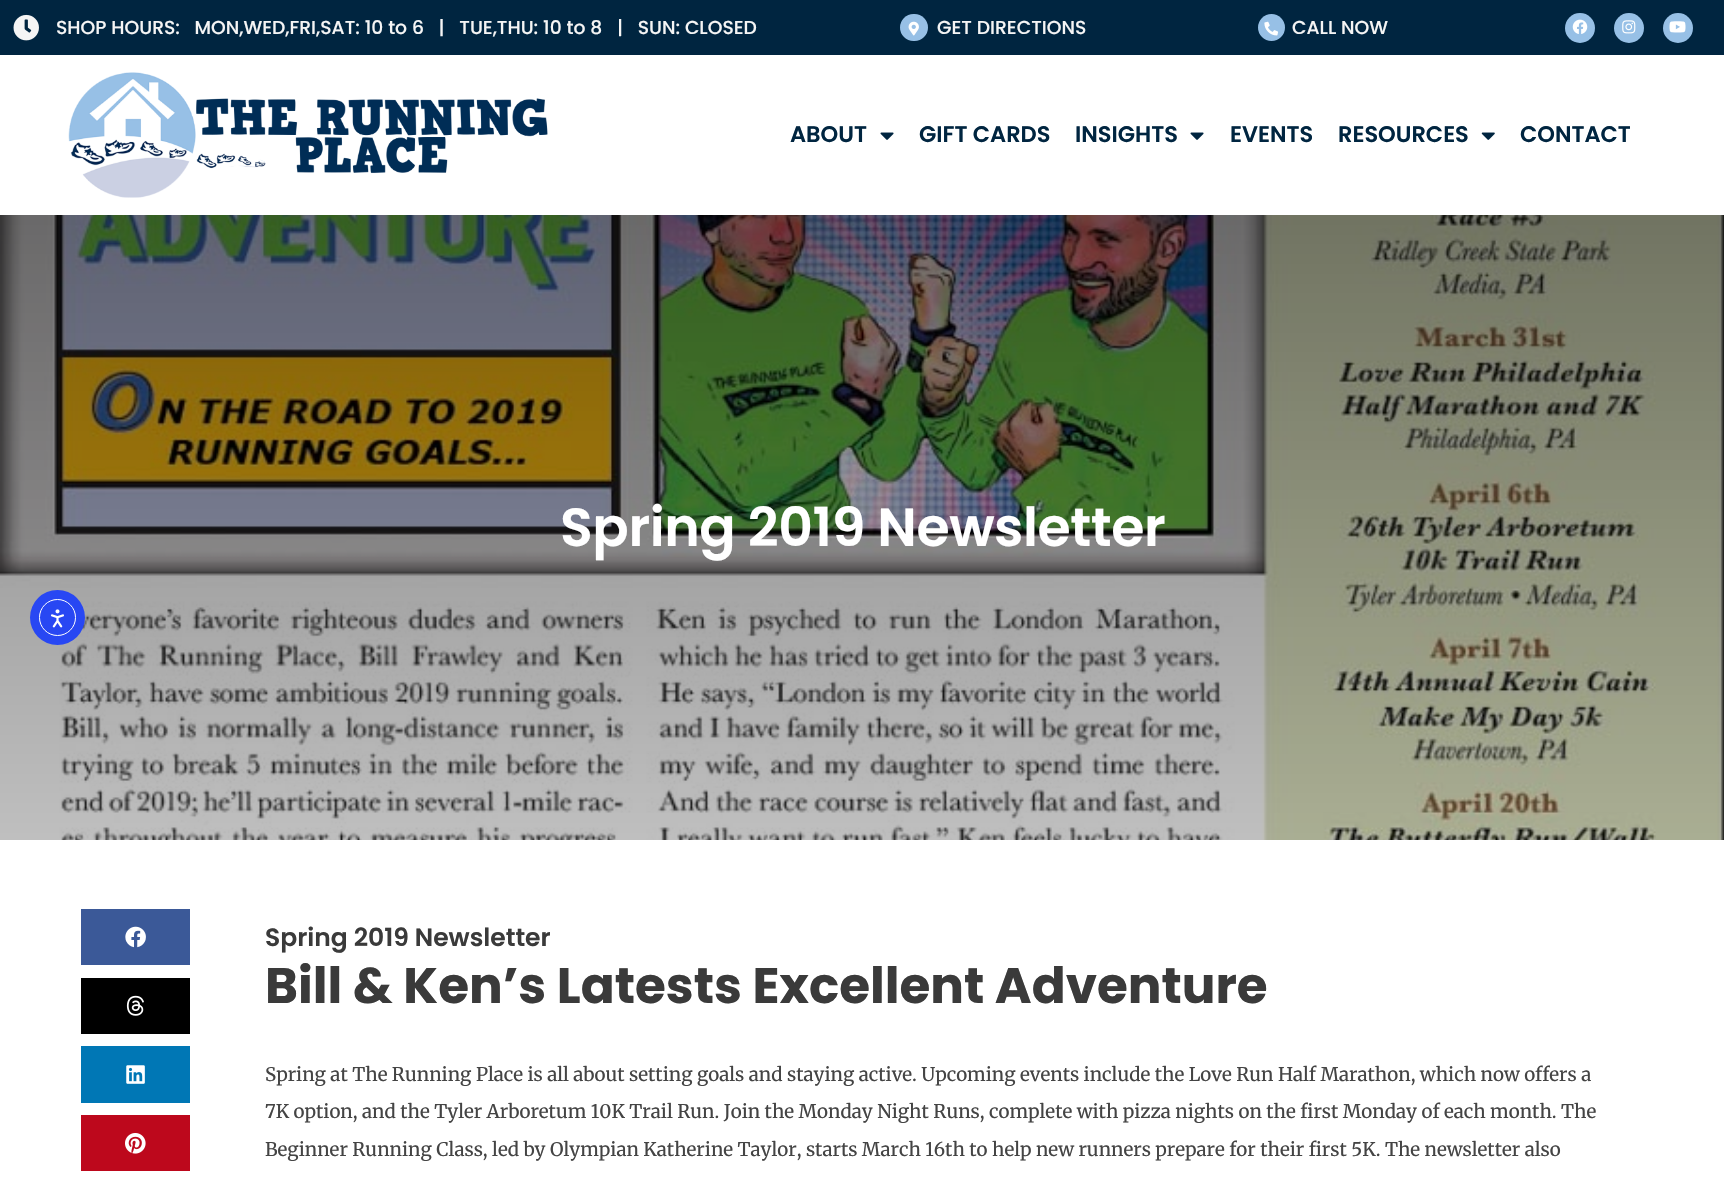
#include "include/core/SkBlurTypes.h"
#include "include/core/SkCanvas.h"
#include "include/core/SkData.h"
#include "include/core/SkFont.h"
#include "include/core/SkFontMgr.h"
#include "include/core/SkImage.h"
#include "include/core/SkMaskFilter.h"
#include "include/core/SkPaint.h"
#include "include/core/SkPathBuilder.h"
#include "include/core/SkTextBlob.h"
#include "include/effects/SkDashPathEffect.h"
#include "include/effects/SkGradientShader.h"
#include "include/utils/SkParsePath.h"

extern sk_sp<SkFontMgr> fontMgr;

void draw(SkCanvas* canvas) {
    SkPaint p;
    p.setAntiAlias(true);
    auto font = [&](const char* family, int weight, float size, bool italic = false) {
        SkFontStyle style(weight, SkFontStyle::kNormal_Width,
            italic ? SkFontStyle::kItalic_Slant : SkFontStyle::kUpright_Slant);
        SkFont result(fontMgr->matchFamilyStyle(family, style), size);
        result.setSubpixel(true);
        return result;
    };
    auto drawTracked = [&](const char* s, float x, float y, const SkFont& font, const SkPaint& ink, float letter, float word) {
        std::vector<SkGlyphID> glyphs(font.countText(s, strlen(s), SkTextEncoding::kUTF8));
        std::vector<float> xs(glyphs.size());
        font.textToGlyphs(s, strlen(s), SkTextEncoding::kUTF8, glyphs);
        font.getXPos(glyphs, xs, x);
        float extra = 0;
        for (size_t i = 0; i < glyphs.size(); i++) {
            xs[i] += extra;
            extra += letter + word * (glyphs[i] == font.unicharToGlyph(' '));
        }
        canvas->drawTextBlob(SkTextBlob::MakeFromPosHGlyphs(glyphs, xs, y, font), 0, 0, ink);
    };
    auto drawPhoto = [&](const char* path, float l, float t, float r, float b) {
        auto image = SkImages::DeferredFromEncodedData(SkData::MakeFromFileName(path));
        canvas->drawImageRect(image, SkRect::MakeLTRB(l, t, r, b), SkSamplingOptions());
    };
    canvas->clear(0xFFFFFFFF);
    p.setColor(0xFF002540);
    canvas->drawRect(SkRect::MakeLTRB(0, 0, 1724, 55), p);
    drawPhoto("media/1.png", 13, 14, 39, 41);
    auto font1 = font("Poppins", 500, 18.75f);
    p.setColor(0xFFF5F5F5);
    canvas->drawString("SHOP HOURS:   MON,WED,FRI,SAT: 10 to 6   |   TUE,THU: 10 to 8   |   SUN: CLOSED", 56, 34, font1, p);
    p.setColor(0xFF97C0E6);
    canvas->drawRoundRect(SkRect::MakeLTRB(900, 14, 928, 41), 13.5f, 13.5f, p);
    drawPhoto("media/2.png", 908, 21, 919, 36);
    p.setColor(0xFFF5F5F5);
    canvas->drawString("GET DIRECTIONS", 937, 34, font1, p);
    p.setColor(0xFF97C0E6);
    canvas->drawCircle(1271.5f, 27.5f, 13.5f, p);
    drawPhoto("media/3.png", 1264, 21, 1279, 36);
    p.setColor(0xFFF5F5F5);
    canvas->drawString("CALL NOW", 1292, 34, font1, p);
    p.setColor(0xFF97C0E6);
    canvas->drawCircle(1580, 28, 15, p);
    drawPhoto("media/4.png", 1572, 19, 1588, 34);
    canvas->drawCircle(1629, 28, 15, p);
    drawPhoto("media/5.png", 1622, 20, 1636, 34);
    canvas->drawCircle(1678, 28, 15, p);
    drawPhoto("media/6.png", 1669, 21, 1686, 33);
    drawPhoto("media/7.png", 68, 72, 548, 198);
    auto font2 = font("Poppins", 600, 22.5f);
    p.setColor(0xFF002540);
    canvas->drawString("ABOUT", 790, 142, font2, p);
    drawPhoto("media/8.png", 880, 132, 894, 140);
    canvas->drawString("GIFT CARDS", 919, 142, font2, p);
    canvas->drawString("INSIGHTS", 1075, 142, font2, p);
    drawPhoto("media/8.png", 1190, 132, 1204, 140);
    canvas->drawString("EVENTS", 1230, 142, font2, p);
    canvas->drawString("RESOURCES", 1338, 142, font2, p);
    drawPhoto("media/9.png", 1481, 132, 1495, 140);
    canvas->drawString("CONTACT", 1520, 142, font2, p);
    drawPhoto("media/10.png", 0, 215, 1724, 840);
    auto font3 = font("Poppins", 600, 53.75f);
    p.setColor(0xFFFFFFFF);
    drawTracked("Spring 2019 Newsletter", 560, 546, font3, p, -0.4f, 0);
    p.setColor(0xFF3B5998);
    canvas->drawRect(SkRect::MakeLTRB(81, 909, 190, 965), p);
    drawPhoto("media/11.png", 125, 926, 146, 948);
    p.setColor(0xFF000000);
    canvas->drawRect(SkRect::MakeLTRB(81, 978, 190, 1034), p);
    drawPhoto("media/12.png", 126, 995, 144, 1016);
    p.setColor(0xFF0077B5);
    canvas->drawRect(SkRect::MakeLTRB(81, 1046, 190, 1103), p);
    drawPhoto("media/13.png", 126, 1065, 145, 1084);
    p.setColor(0xFFBD081C);
    canvas->drawRect(SkRect::MakeLTRB(81, 1115, 190, 1171), p);
    drawPhoto("media/14.png", 125, 1133, 146, 1154);
    auto font4 = font("Poppins", 600, 25);
    p.setColor(0xFF3A3A3A);
    canvas->drawString("Spring 2019 Newsletter", 265, 946, font4, p);
    auto font5 = font("Poppins", 700, 50);
    canvas->drawString("Bill & Ken’s Latests Excellent Adventure", 265, 1003, font5, p);
    auto font6 = font("Merriweather", 400, 18.75f);
    p.setColor(0xFF444444);
    {
        const struct { const char* s; float x, y; } items[] = {
            {"Spring at The Running Place is all about setting goals and staying active. Upcoming events include the Love Run Half Marathon, which now offers a", 265, 1081},
            {"7K option, and the Tyler Arboretum 10K Trail Run. Join the Monday Night Runs, complete with pizza nights on the first Monday of each month. The", 265, 1118},
            {"Beginner Running Class, led by Olympian Katherine Taylor, starts March 16th to help new runners prepare for their first 5K. The newsletter also", 265, 1156},
        };
        for (auto [s, x, y] : items) {
            canvas->drawString(s, x, y, font6, p);
        }
    }
    p.setColor(0xFF2847F3);
    canvas->drawCircle(57.5f, 617.5f, 27.5f, p);
    p.setStyle(SkPaint::kStroke_Style);
    p.setStrokeWidth(1);
    p.setColor(0xFFFFFFFF);
    canvas->drawCircle(57.5f, 617.5f, 18, p);
    drawPhoto("media/15.png", 50, 609, 64, 628);
}
